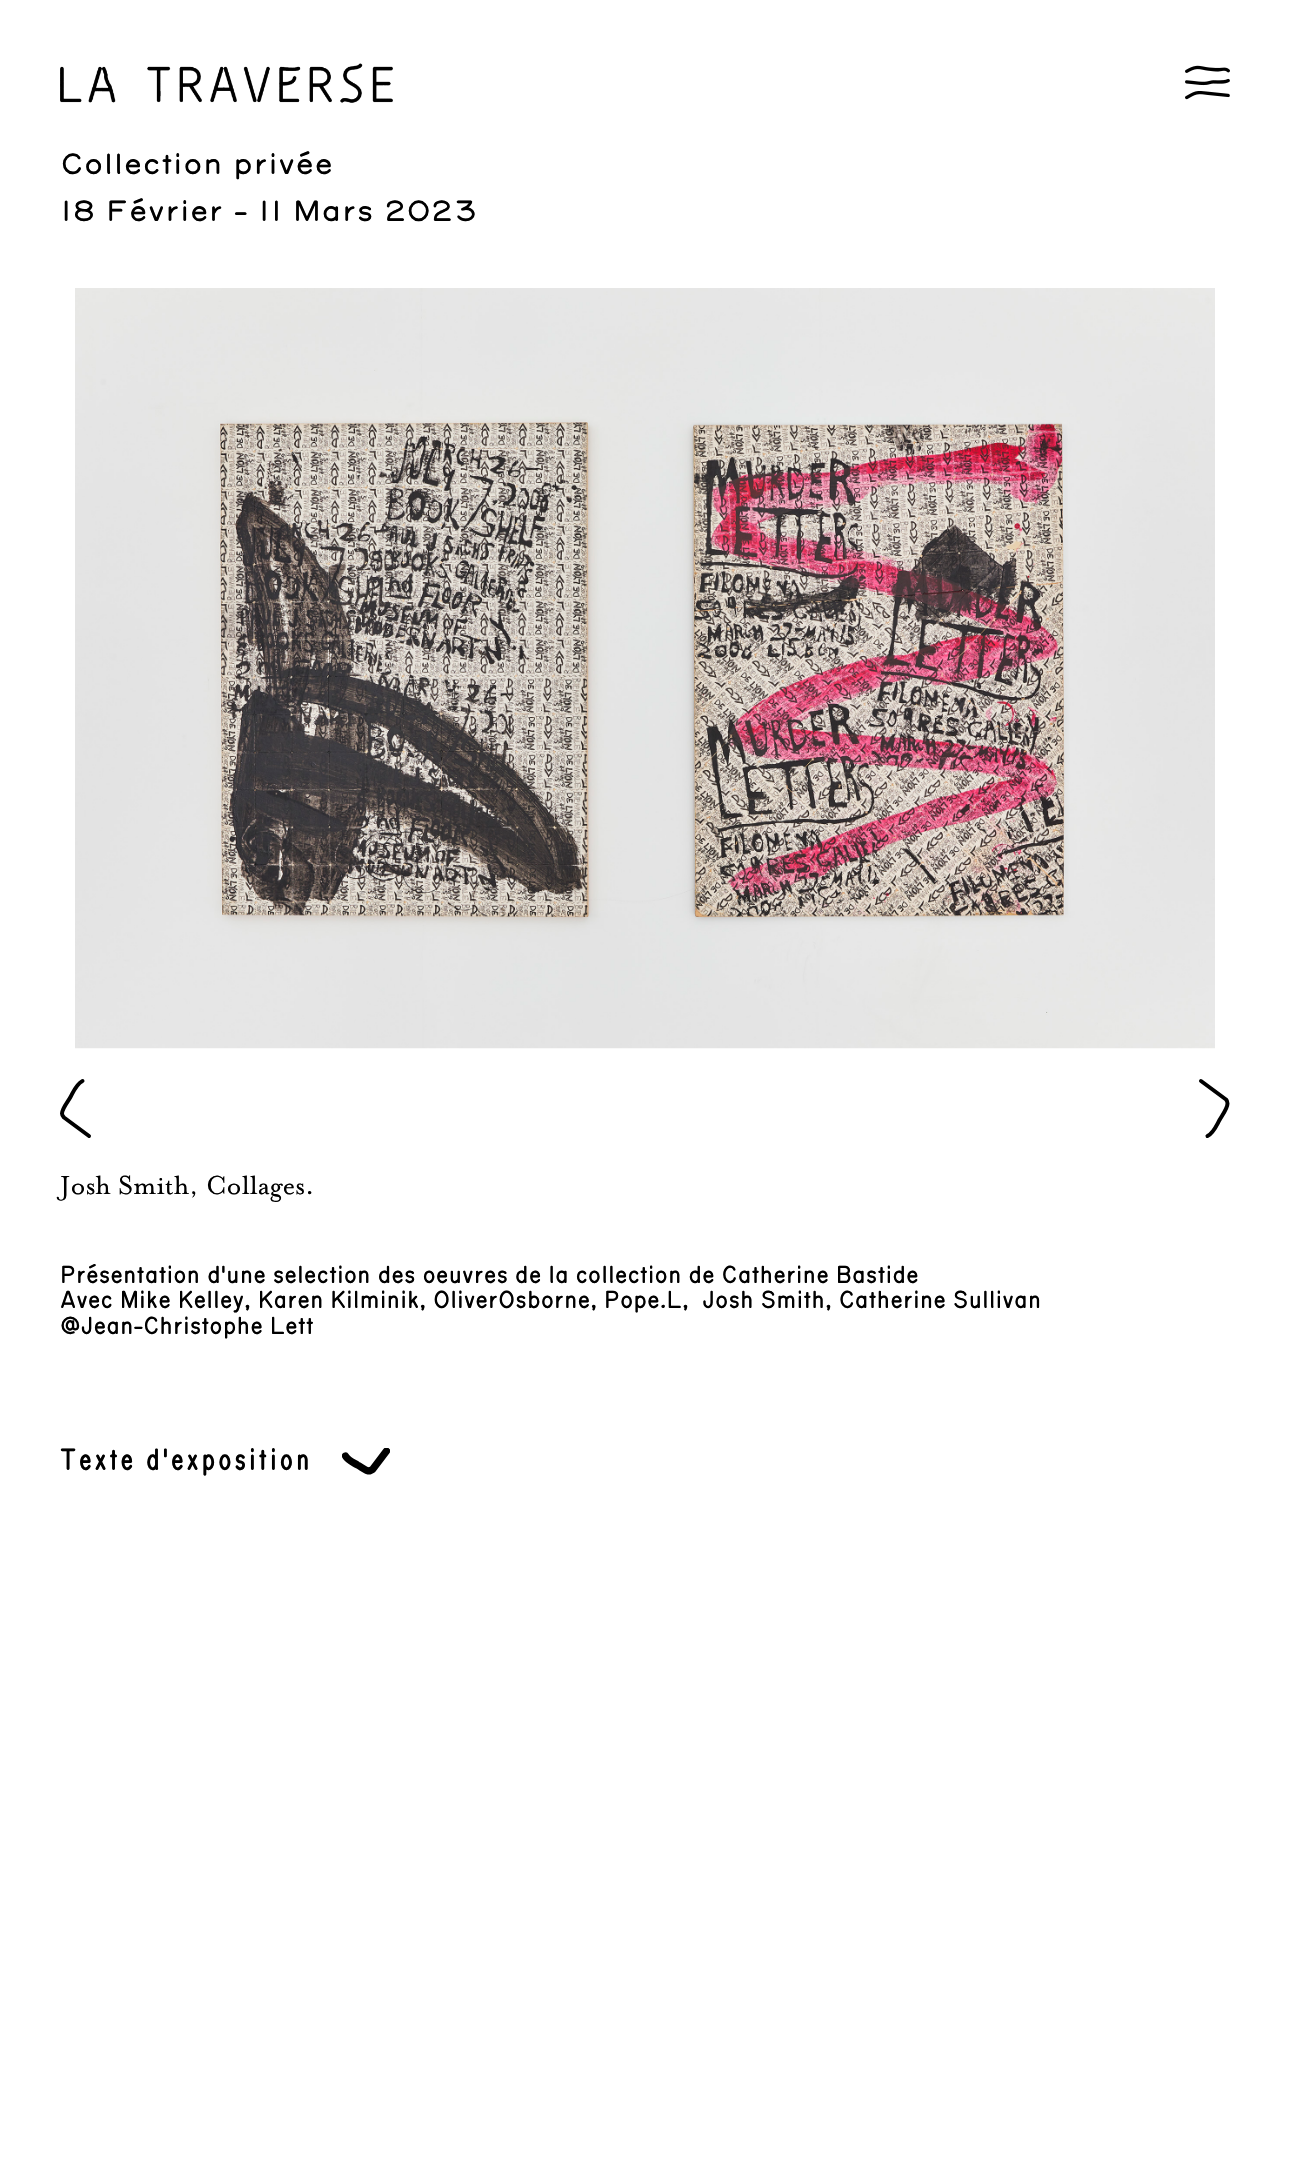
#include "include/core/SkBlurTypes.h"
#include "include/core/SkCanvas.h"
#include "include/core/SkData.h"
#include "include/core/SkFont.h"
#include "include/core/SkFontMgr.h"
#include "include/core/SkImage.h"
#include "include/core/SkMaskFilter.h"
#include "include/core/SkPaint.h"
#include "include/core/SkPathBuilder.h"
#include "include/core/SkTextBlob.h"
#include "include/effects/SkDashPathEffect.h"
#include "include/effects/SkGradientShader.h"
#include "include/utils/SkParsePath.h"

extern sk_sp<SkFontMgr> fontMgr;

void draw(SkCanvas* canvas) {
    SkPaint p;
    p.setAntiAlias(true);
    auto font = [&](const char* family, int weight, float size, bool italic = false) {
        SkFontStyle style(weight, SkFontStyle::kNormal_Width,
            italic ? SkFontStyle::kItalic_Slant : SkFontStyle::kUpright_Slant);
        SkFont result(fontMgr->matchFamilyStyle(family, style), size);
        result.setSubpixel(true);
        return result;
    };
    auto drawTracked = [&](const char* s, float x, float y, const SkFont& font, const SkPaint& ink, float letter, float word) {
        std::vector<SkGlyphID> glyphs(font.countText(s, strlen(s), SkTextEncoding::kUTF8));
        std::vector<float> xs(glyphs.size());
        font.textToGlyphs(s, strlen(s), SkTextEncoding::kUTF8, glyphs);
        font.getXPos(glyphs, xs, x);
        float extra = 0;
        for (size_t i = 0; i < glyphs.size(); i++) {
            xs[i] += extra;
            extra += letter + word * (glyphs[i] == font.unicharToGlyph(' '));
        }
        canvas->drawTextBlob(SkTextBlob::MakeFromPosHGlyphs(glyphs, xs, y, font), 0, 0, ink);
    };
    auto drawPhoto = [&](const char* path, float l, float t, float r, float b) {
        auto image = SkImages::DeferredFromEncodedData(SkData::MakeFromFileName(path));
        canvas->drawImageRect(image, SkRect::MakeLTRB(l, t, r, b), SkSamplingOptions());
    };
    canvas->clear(0xFFFFFFFF);
    drawPhoto("media/1.png", 60, 63, 393, 103);
    drawPhoto("media/2.png", 1185, 65, 1230, 100);
    auto font1 = font("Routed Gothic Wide", 400, 28.5f);
    p.setColor(0xFF000000);
    canvas->drawString("Collection privée", 60, 174, font1, p);
    canvas->drawString("18 Février - 11 Mars 2023", 60, 221, font1, p);
    drawPhoto("media/3.png", 75, 288, 1215, 1049);
    p.setStyle(SkPaint::kStroke_Style);
    p.setStrokeWidth(4);
    p.setStrokeCap(SkPaint::kRound_Cap);
    p.setStrokeJoin(SkPaint::kRound_Join);
    canvas->drawPath(SkPathBuilder().moveTo(89, 1136).lineTo(64, 1117.5f).cubicTo(63, 1116.5f, 62, 1115, 62, 1113.5f).cubicTo(62, 1108.5f, 68, 1101.5f, 70.5f, 1097).cubicTo(73.5f, 1091.5f, 76.5f, 1084, 82.5f, 1081).detach(), p);
    canvas->drawPath(SkPathBuilder().moveTo(1201, 1081).lineTo(1226, 1099.5f).cubicTo(1227, 1100.5f, 1227.5f, 1102, 1227.5f, 1103.5f).cubicTo(1227.5f, 1108.5f, 1222, 1115.5f, 1219.5f, 1120).cubicTo(1216.5f, 1125.5f, 1213.5f, 1133, 1207.5f, 1136).detach(), p);
    auto font2 = font("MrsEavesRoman", 400, 30);
    p.setStyle(SkPaint::kFill_Style);
    canvas->drawString("Josh Smith, Collages.", 60, 1194, font2, p);
    auto font3 = font("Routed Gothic", 400, 24);
    {
        const struct { const char* s; float x, y; } items[] = {
            {"Présentation d'une selection des oeuvres de la collection de Catherine Bastide", 60, 1283},
            {"Avec Mike Kelley, Karen Kilminik, OliverOsborne, Pope.L,  Josh Smith, Catherine Sullivan", 60, 1308},
            {"@Jean-Christophe Lett", 60, 1334},
        };
        for (auto [s, x, y] : items) {
            canvas->drawString(s, x, y, font3, p);
        }
    }
    auto font4 = font("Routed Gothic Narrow", 400, 30);
    drawTracked("Texte d'exposition", 60, 1470, font4, p, 3, 0);
    canvas->save();
    canvas->clipRect(SkRect::MakeLTRB(342, 1448, 390, 1475));
    p.setStyle(SkPaint::kStroke_Style);
    p.setStrokeWidth(7.2f);
    canvas->drawPath(SkPathBuilder().moveTo(386.5f, 1451).lineTo(372.5f, 1469.5f).lineTo(369.5f, 1471).cubicTo(365.5f, 1471, 361, 1466.5f, 357.5f, 1465).cubicTo(353.5f, 1462.5f, 348, 1460.5f, 345.5f, 1456).detach(), p);
    canvas->restore();
}
